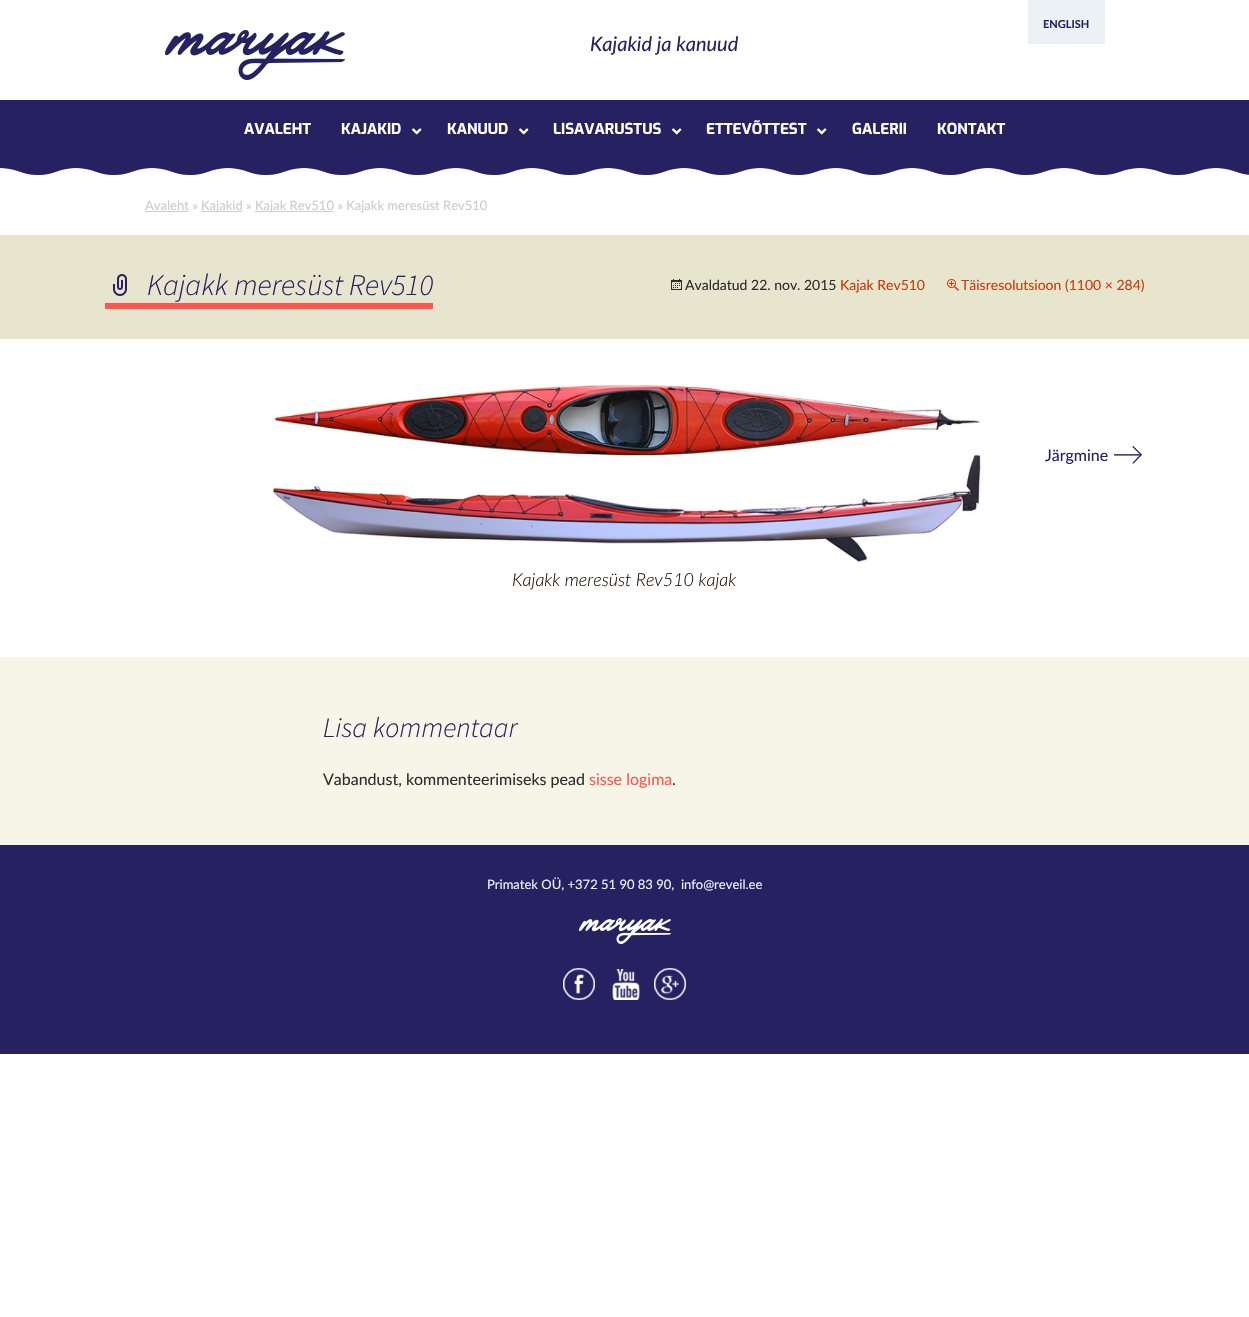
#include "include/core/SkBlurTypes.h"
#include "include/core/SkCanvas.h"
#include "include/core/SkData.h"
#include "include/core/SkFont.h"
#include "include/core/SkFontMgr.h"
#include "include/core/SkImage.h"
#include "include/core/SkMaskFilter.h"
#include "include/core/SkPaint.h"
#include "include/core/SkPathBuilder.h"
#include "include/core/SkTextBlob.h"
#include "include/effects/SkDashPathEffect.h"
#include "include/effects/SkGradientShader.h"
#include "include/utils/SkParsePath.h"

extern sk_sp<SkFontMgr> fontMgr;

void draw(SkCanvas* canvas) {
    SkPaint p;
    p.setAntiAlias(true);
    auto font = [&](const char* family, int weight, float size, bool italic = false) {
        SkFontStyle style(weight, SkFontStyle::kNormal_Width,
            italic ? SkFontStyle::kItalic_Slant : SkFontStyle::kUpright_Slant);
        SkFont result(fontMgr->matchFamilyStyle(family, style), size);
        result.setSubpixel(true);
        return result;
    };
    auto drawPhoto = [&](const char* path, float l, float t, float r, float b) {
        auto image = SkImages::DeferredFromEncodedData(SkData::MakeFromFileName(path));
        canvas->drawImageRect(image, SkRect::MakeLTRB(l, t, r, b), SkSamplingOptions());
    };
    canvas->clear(0xFFFFFFFF);
    p.setColor(0xFFEBF1F4);
    canvas->drawRect(SkRect::MakeLTRB(1028, 0, 1105, 44), p);
    auto font1 = font("Lato", 700, 11);
    p.setColor(0xFF262262);
    canvas->drawString("ENGLISH", 1043, 28, font1, p);
    drawPhoto("media/1.png", 165, 30, 345, 80);
    auto font2 = font("Lato", 400, 20, true);
    canvas->drawString("Kajakid ja kanuud", 590, 51, font2, p);
    canvas->drawRect(SkRect::MakeLTRB(0, 100, 1249, 168), p);
    auto font3 = font("Exo", 700, 15);
    p.setColor(0xFFFFFFFF);
    canvas->drawString("AVALEHT", 244, 134, font3, p);
    canvas->drawString("KAJAKID", 341, 134, font3, p);
    drawPhoto("media/2.png", 412, 128, 422, 135);
    canvas->drawString("KANUUD", 447, 134, font3, p);
    drawPhoto("media/2.png", 519, 128, 529, 135);
    canvas->drawString("LISAVARUSTUS", 553, 134, font3, p);
    drawPhoto("media/2.png", 672, 128, 682, 135);
    canvas->drawString("ETTEVÕTTEST", 706, 134, font3, p);
    drawPhoto("media/2.png", 817, 128, 827, 135);
    canvas->drawString("GALERII", 852, 134, font3, p);
    canvas->drawString("KONTAKT", 937, 134, font3, p);
    drawPhoto("media/3.png", 0, 168, 1249, 175);
    auto font4 = font("Lato", 400, 13);
    p.setColor(0xFFCCCCCC);
    canvas->drawString("Avaleht »", 145, 210, font4, p);
    canvas->drawRect(SkRect::MakeLTRB(145, 211, 188, 212), p);
    canvas->drawRect(SkRect::MakeLTRB(201, 211, 242, 212), p);
    canvas->drawString("Kajakid »", 201, 210, font4, p);
    canvas->drawRect(SkRect::MakeLTRB(255, 211, 333, 212), p);
    canvas->drawString("Kajak Rev510 » Kajakk meresüst Rev510", 255, 210, font4, p);
    p.setColor(0xFFE8E5CE);
    canvas->drawRect(SkRect::MakeLTRB(0, 235, 1249, 339), p);
    p.setColor(0xFFFF564F);
    canvas->drawRect(SkRect::MakeLTRB(105, 303, 433, 309), p);
    drawPhoto("media/4.png", 113, 274, 127, 296);
    auto font5 = font("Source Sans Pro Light", 300, 30, true);
    p.setColor(0xFF262262);
    canvas->drawString("Kajakk meresüst Rev510", 147, 295, font5, p);
    drawPhoto("media/5.png", 671, 279, 682, 290);
    auto font6 = font("Lato", 400, 14);
    p.setColor(0xFF2E2E2E);
    canvas->drawString("Avaldatud 22. nov. 2015", 685, 290, font6, p);
    p.setColor(0xFFCA3C08);
    canvas->drawString("Kajak Rev510", 840, 290, font6, p);
    drawPhoto("media/6.png", 947, 279, 959, 291);
    canvas->drawString("Täisresolutsioon (1100 × 284)", 961, 290, font6, p);
    auto font7 = font("Lato", 400, 16);
    p.setColor(0xFF262262);
    canvas->drawString("Järgmine", 1045, 461, font7, p);
    auto font8 = font("Lato", 300, 32);
    canvas->drawString("→", 1112, 465, font8, p);
    drawPhoto("media/7.png", 270, 384, 981, 564);
    auto font9 = font("Lato", 300, 18, true);
    p.setColor(0xFF220E10);
    canvas->drawString("Kajakk meresüst Rev510 kajak", 512, 586, font9, p);
    p.setColor(0xFFF7F5E7);
    canvas->drawRect(SkRect::MakeLTRB(0, 657, 1249, 845), p);
    auto font10 = font("Source Sans Pro Light", 300, 28, true);
    p.setColor(0xFF262262);
    canvas->drawString("Lisa kommentaar", 323, 737, font10, p);
    p.setColor(0xFF2E2E2E);
    canvas->drawString("Vabandust, kommenteerimiseks pead", 323, 785, font7, p);
    p.setColor(0xFFFF564F);
    canvas->drawString("sisse logima", 589, 785, font7, p);
    p.setColor(0xFF2E2E2E);
    canvas->drawString(".", 672, 785, font7, p);
    p.setColor(0xFF262262);
    canvas->drawRect(SkRect::MakeLTRB(0, 845, 1249, 1054), p);
    p.setColor(0xFFEBF0F3);
    canvas->drawString("Primatek OÜ, +372 51 90 83 90,  info@reveil.ee", 487, 889, font4, p);
    drawPhoto("media/8.png", 579, 918, 671, 944);
    drawPhoto("media/9.png", 563, 968, 595, 1000);
    drawPhoto("media/10.png", 612, 969, 640, 1000);
    drawPhoto("media/11.png", 654, 968, 686, 1000);
}
